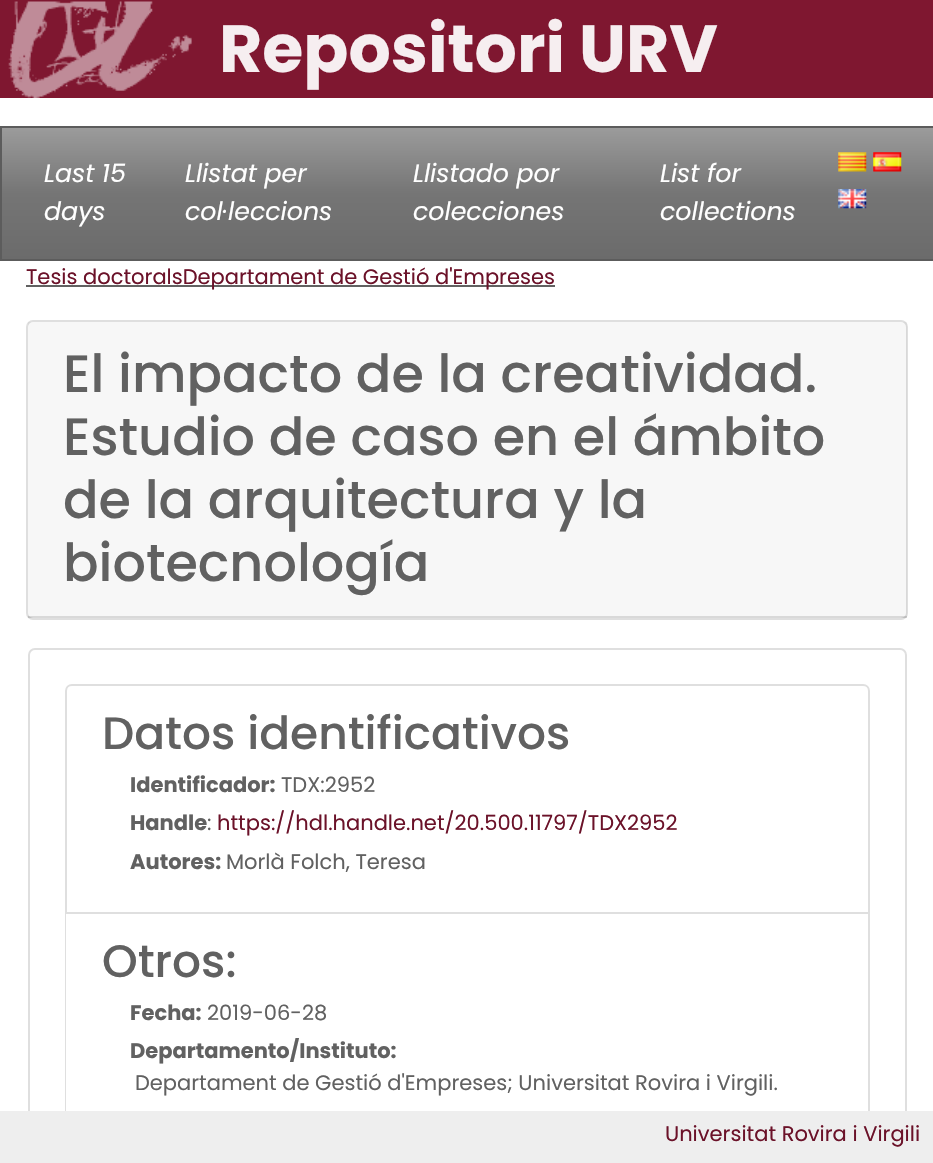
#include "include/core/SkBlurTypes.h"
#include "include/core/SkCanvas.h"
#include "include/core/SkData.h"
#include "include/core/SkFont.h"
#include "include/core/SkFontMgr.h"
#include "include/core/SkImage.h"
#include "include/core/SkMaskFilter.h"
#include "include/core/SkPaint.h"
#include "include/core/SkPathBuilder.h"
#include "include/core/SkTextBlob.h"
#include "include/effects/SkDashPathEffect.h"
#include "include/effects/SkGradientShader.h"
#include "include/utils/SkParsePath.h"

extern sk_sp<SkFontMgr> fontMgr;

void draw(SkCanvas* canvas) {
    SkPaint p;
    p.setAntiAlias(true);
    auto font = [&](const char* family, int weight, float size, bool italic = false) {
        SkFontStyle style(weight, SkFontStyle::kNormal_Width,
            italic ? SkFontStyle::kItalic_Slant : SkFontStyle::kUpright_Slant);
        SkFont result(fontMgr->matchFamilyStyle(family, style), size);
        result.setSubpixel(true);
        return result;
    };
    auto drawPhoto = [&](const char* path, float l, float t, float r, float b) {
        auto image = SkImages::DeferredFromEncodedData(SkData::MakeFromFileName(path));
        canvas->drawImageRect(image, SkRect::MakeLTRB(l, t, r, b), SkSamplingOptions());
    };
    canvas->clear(0xFFFFFFFF);
    p.setColor(0xFF7F1730);
    canvas->drawRect(SkRect::MakeLTRB(0, 0, 933, 98), p);
    drawPhoto("media/1.png", 8, 1, 192, 98);
    auto font1 = font("Poppins", 700, 66.5f);
    p.setColor(0xFFF6EEF0);
    canvas->drawString("Repositori URV", 219, 72, font1, p);
    {
        const SkColor colors[] = {0xFF9B9B9B, 0xFF757575, 0xFF6B6B6B};
        const float stops[] = {0, 0.5f, 1};
        const SkPoint ends[] = {{467, 128}, {467, 259}};
        p.setShader(SkGradientShader::MakeLinear(ends, colors, stops, 3, SkTileMode::kClamp));
        p.setAlpha(255);
    }
    canvas->drawRect(SkRect::MakeLTRB(2, 128, 933, 259), p);
    p.setStyle(SkPaint::kStroke_Style);
    p.setStrokeWidth(2);
    p.setShader(nullptr);
    p.setColor(0xFF5C5C5C);
    canvas->drawRect(SkRect::MakeLTRB(1, 127, 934, 260), p);
    auto font2 = font("Poppins", 400, 25.25f, true);
    p.setStyle(SkPaint::kFill_Style);
    p.setColor(0xFFFFFFFF);
    {
        const struct { const char* s; float x, y; } items[] = {
            {"Last 15", 44, 182},
            {"days", 44, 220},
            {"Llistat per", 185, 182},
            {"col·leccions", 185, 220},
            {"Llistado por", 413, 182},
            {"colecciones", 413, 220},
            {"List for", 660, 182},
            {"collections", 660, 220},
        };
        for (auto [s, x, y] : items) {
            canvas->drawString(s, x, y, font2, p);
        }
    }
    drawPhoto("media/2.png", 838, 152, 867, 172);
    drawPhoto("media/3.png", 873, 152, 902, 172);
    drawPhoto("media/4.png", 838, 189, 867, 209);
    p.setColor(0xFF616161);
    canvas->drawRect(SkRect::MakeLTRB(26, 285, 555, 287), p);
    auto font3 = font("Poppins", 400, 21);
    p.setColor(0xFF6B1229);
    canvas->drawString("Tesis doctoralsDepartament de Gestió d'Empreses", 26, 284, font3, p);
    p.setStyle(SkPaint::kStroke_Style);
    p.setColor(0xFFDFDFDF);
    canvas->drawRoundRect(SkRect::MakeLTRB(27, 321, 907, 619), 6, 6, p);
    p.setStyle(SkPaint::kFill_Style);
    p.setColor(0x08000000);
    canvas->drawRect(SkRect::MakeLTRB(28, 322, 907, 618), p);
    p.setColor(0x1F000000);
    canvas->drawRect(SkRect::MakeLTRB(28, 616, 907, 618), p);
    auto font4 = font("Poppins", 500, 52.5f);
    p.setColor(0xFF616161);
    {
        const struct { const char* s; float x, y; } items[] = {
            {"El impacto de la creatividad.", 63, 392},
            {"Estudio de caso en el ámbito", 63, 455},
            {"de la arquitectura y la", 63, 518},
            {"biotecnología", 63, 581},
        };
        for (auto [s, x, y] : items) {
            canvas->drawString(s, x, y, font4, p);
        }
    }
    p.setStyle(SkPaint::kStroke_Style);
    p.setColor(0xFFDFDFDF);
    canvas->drawRoundRect(SkRect::MakeLTRB(29, 649, 906, 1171), 6, 6, p);
    canvas->drawPath(SkPathBuilder().moveTo(72, 685).lineTo(863, 685).cubicTo(866.5f, 685, 869, 687.5f, 869, 691).lineTo(869, 913).lineTo(66, 913).lineTo(66, 691).cubicTo(66, 687.5f, 68.5f, 685, 72, 685).close().detach(), p);
    auto font5 = font("Poppins", 500, 45.5f);
    p.setStyle(SkPaint::kFill_Style);
    p.setColor(0xFF616161);
    canvas->drawString("Datos identificativos", 102, 749, font5, p);
    auto font6 = font("Poppins", 700, 21);
    canvas->drawString("Identificador:", 130, 792, font6, p);
    canvas->drawString("TDX:2952", 281, 792, font3, p);
    canvas->drawString("Handle", 130, 830, font6, p);
    canvas->drawString(":", 207, 830, font3, p);
    p.setColor(0xFF6B1229);
    canvas->drawString("https://hdl.handle.net/20.500.11797/TDX2952", 217, 830, font3, p);
    p.setColor(0xFF616161);
    canvas->drawString("Autores:", 130, 869, font6, p);
    canvas->drawString("Morlà Folch, Teresa", 226, 869, font3, p);
    p.setColor(0xFFDFDFDF);
    canvas->drawPath(SkPathBuilder(SkPathFillType::kEvenOdd).moveTo(65, 914).lineTo(870, 914).lineTo(870, 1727).cubicTo(870, 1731, 867, 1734, 863, 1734).lineTo(72, 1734).cubicTo(68, 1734, 65, 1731, 65, 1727).close().moveTo(66, 914).lineTo(868, 914).lineTo(868, 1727).cubicTo(868, 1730, 866, 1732, 863, 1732).lineTo(72, 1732).cubicTo(69, 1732, 66, 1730, 66, 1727).close().detach(), p);
    p.setColor(0xFF616161);
    canvas->drawString("Otros:", 102, 977, font5, p);
    canvas->drawString("Fecha:", 130, 1020, font6, p);
    canvas->drawString("2019-06-28", 207, 1020, font3, p);
    canvas->drawString("Departamento/Instituto:", 130, 1058, font6, p);
    canvas->drawString("Departament de Gestió d'Empreses; Universitat Rovira i Virgili.", 135, 1090, font3, p);
    p.setColor(0xFFEEEEEE);
    canvas->drawRect(SkRect::MakeLTRB(0, 1111, 933, 1163), p);
    p.setColor(0xFF6B1229);
    canvas->drawString("Universitat Rovira i Virgili", 665, 1141, font3, p);
}
